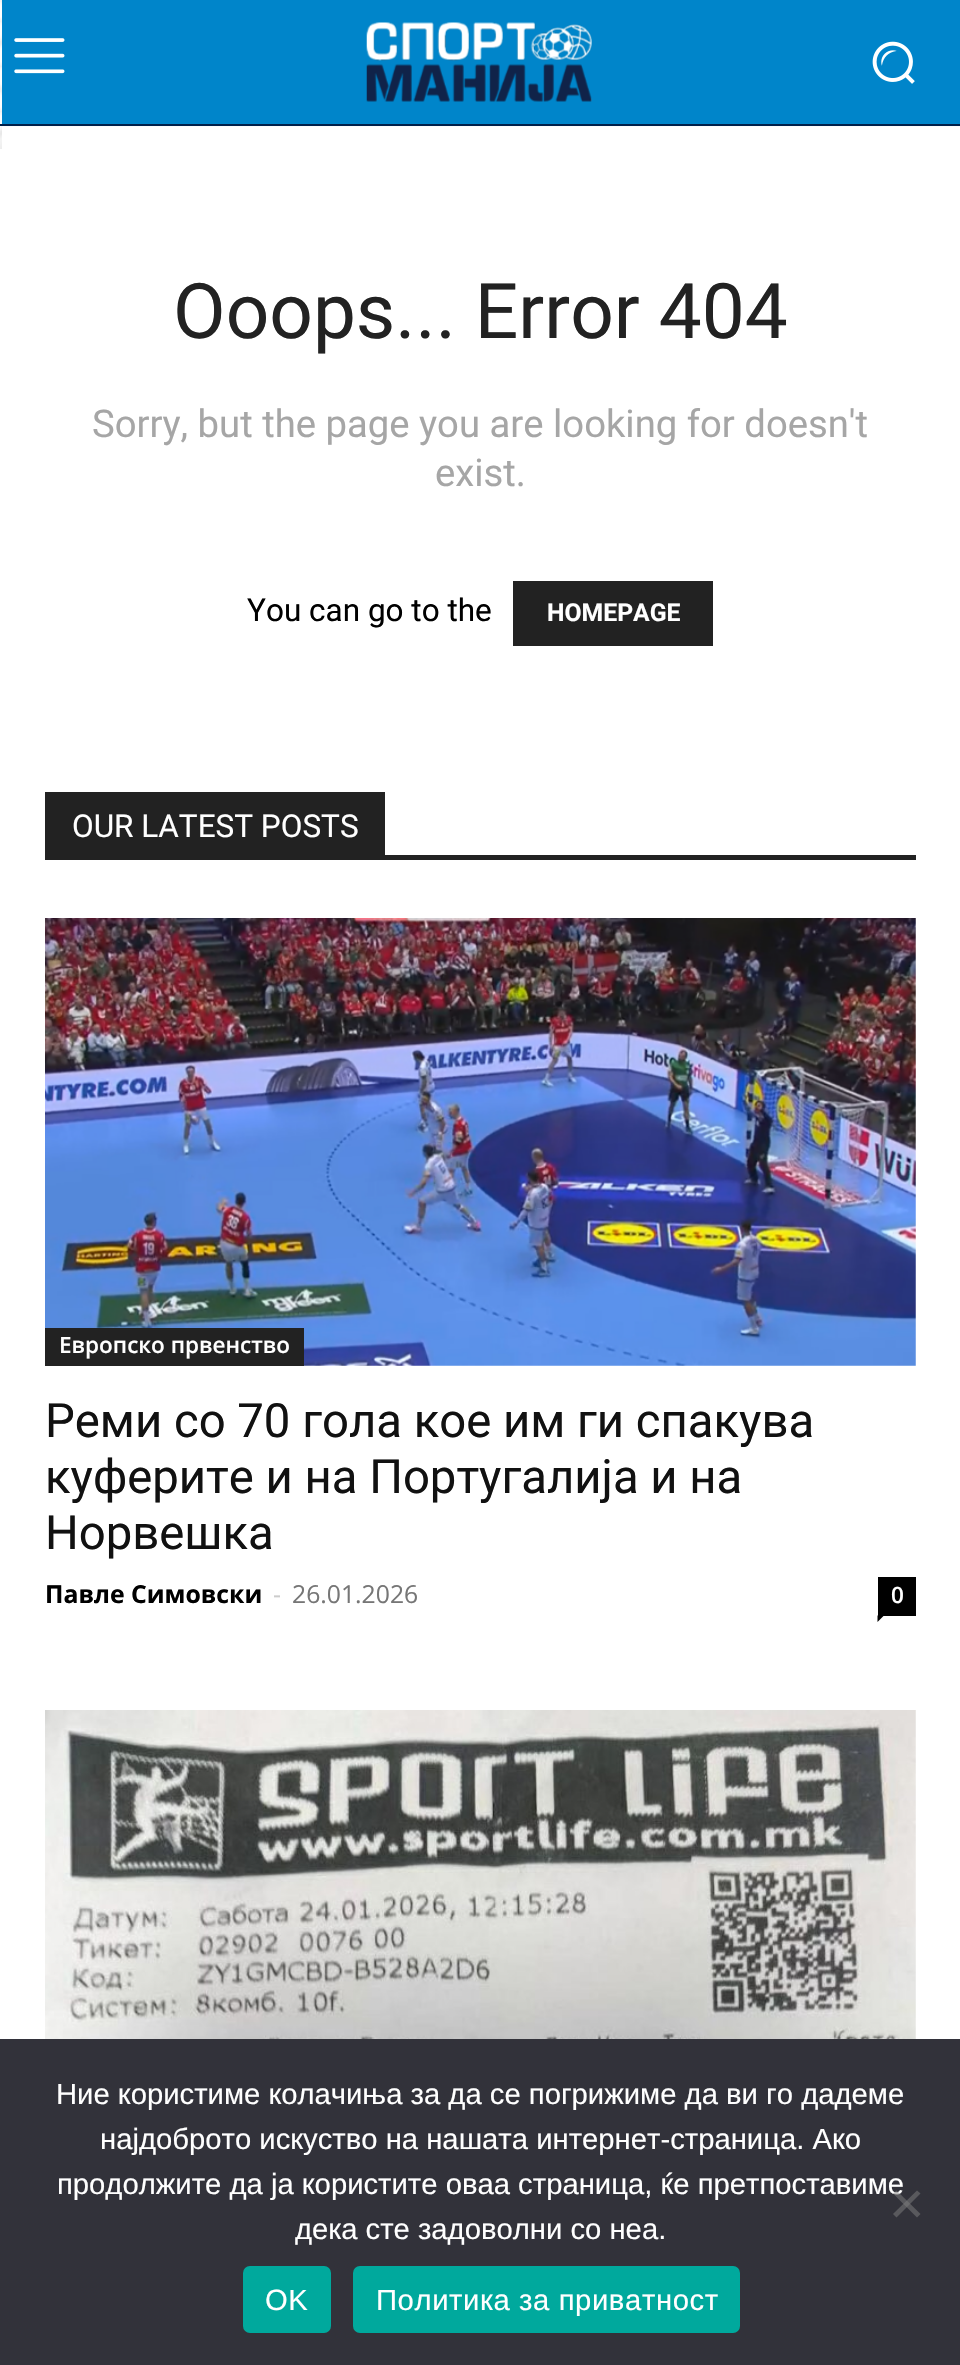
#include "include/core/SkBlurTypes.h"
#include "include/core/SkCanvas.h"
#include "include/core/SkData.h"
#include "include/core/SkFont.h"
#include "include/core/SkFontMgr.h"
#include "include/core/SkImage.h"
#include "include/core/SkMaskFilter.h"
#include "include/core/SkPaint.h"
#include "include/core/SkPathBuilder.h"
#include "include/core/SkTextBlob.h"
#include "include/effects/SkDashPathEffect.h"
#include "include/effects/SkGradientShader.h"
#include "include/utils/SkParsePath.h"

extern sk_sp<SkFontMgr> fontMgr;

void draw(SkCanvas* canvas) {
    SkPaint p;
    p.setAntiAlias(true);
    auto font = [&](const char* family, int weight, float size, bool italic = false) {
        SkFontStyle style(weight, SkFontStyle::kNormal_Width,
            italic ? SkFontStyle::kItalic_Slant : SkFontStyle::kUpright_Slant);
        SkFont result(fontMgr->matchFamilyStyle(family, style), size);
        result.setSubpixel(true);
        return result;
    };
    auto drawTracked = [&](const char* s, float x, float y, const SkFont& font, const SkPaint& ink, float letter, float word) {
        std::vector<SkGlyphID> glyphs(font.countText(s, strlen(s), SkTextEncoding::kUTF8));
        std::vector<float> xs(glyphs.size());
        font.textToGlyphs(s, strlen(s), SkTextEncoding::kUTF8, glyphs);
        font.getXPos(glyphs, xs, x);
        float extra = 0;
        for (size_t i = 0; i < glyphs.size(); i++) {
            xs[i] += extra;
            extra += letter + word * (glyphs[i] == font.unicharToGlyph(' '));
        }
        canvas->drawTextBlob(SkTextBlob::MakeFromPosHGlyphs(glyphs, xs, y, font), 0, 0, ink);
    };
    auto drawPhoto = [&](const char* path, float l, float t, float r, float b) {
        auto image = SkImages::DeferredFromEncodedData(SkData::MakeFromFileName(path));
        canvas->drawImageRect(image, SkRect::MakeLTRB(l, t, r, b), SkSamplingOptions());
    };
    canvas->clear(0xFFFFFFFF);
    drawPhoto("media/1.png", 0, 0, 2, 149);
    p.setColor(0x1F000000);
    p.setMaskFilter(SkMaskFilter::MakeBlur(kNormal_SkBlurStyle, 11));
    canvas->drawRect(SkRect::MakeLTRB(-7, 142, 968, 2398), p);
    p.setMaskFilter(nullptr);
    p.setColor(0xFF0085CA);
    canvas->drawRect(SkRect::MakeLTRB(2, 0, 960, 124), p);
    drawPhoto("media/2.png", 14, 38, 65, 74);
    drawPhoto("media/3.png", 366, 22, 592, 102);
    drawPhoto("media/4.png", 872, 41, 915, 84);
    {
        const struct { float l, t, r, b; SkColor color; } items[] = {
            {0, 124, 960, 126, 0xFF00204A},
            {2, 127, 960, 149, 0xFFFFFFFF},
            {0, 149, 960, 2039, 0xFFFFFFFF},
        };
        for (auto [l, t, r, b, color] : items) {
            p.setColor(color);
            canvas->drawRect(SkRect::MakeLTRB(l, t, r, b), p);
        }
    }
    auto font1 = font("Roboto", 400, 76.5f);
    p.setColor(0xFF222222);
    canvas->drawString("Ooops... Error 404", 173, 338, font1, p);
    auto font2 = font("Roboto", 400, 38.25f);
    p.setColor(0xFFA6A6A6);
    canvas->drawString("Sorry, but the page you are looking for doesn't", 92, 437, font2, p);
    canvas->drawString("exist.", 435, 486, font2, p);
    auto font3 = font("Roboto", 400, 31.5f);
    p.setColor(0xFF000000);
    canvas->drawString("You can go to the", 247, 621, font3, p);
    p.setColor(0xFF222222);
    canvas->drawRect(SkRect::MakeLTRB(513, 581, 713, 646), p);
    auto font4 = font("Roboto", 700, 24.75f);
    p.setColor(0xFFFFFFFF);
    canvas->drawString("HOMEPAGE", 547, 621, font4, p);
    p.setColor(0xFF222222);
    canvas->drawRect(SkRect::MakeLTRB(45, 855, 916, 860), p);
    canvas->drawRect(SkRect::MakeLTRB(45, 792, 385, 855), p);
    p.setColor(0xFFFFFFFF);
    canvas->drawString("OUR LATEST POSTS", 72, 837, font3, p);
    drawPhoto("media/5.png", 45, 918, 916, 1366);
    p.setColor(0xFF222222);
    canvas->drawRect(SkRect::MakeLTRB(45, 1328, 304, 1366), p);
    auto font5 = font("Open Sans", 600, 22.5f);
    p.setColor(0xFFFFFFFF);
    canvas->drawString("Европско првенство", 59, 1353, font5, p);
    auto font6 = font("Roboto", 400, 47.25f);
    p.setColor(0xFF111111);
    {
        const struct { const char* s; float x, y; } items[] = {
            {"Реми со 70 гола кое им ги спакува", 45, 1437},
            {"куферите и на Португалија и на", 45, 1493},
            {"Норвешка", 45, 1549},
        };
        for (auto [s, x, y] : items) {
            canvas->drawString(s, x, y, font6, p);
        }
    }
    auto font7 = font("Open Sans", 700, 24.75f);
    p.setColor(0xFF000000);
    canvas->drawString("Павле Симовски", 45, 1603, font7, p);
    auto font8 = font("Open Sans", 400, 24.75f);
    p.setColor(0xFFCCCCCC);
    canvas->drawString("-", 273, 1603, font8, p);
    p.setColor(0xFF767676);
    canvas->drawString("26.01.2026", 292, 1603, font8, p);
    p.setColor(0xFF000000);
    canvas->drawRect(SkRect::MakeLTRB(878, 1577, 916, 1616), p);
    p.setColor(0xFFFFFFFF);
    canvas->drawString("0", 891, 1603, font5, p);
    p.setColor(0xFF000000);
    canvas->drawPath(SkPathBuilder().moveTo(877.5f, 1615.5f).lineTo(884, 1615.5f).lineTo(877.5f, 1622).close().detach(), p);
    drawPhoto("media/6.png", 45, 1710, 916, 2039);
    p.setColor(0xFF32323A);
    canvas->drawRect(SkRect::MakeLTRB(0, 2039, 960, 2365), p);
    auto font9 = font("Liberation Sans", 400, 29.25f);
    p.setColor(0xFFFFFFFF);
    {
        const struct { const char* s; float x, y; } items[] = {
            {"Ние користиме колачиња за да се погрижиме да ви го дадеме", 56, 2104},
            {"најдоброто искуство на нашата интернет-страница. Ако", 100, 2149},
            {"продолжите да ја користите оваа страница, ќе претпоставиме", 57, 2194},
            {"дека сте задоволни со неа.", 295, 2239},
        };
        for (auto [s, x, y] : items) {
            canvas->drawString(s, x, y, font9, p);
        }
    }
    p.setColor(0xFF59595D);
    canvas->drawPath(SkPathBuilder().moveTo(917, 2190.5f).lineTo(920.5f, 2193.5f).lineTo(896.5f, 2217.5f).lineTo(893, 2214).close().detach(), p);
    p.setColor(0x80808080);
    canvas->drawPath(SkPathBuilder().moveTo(893, 2193.5f).lineTo(896.5f, 2190.5f).lineTo(920.5f, 2214).lineTo(917, 2217.5f).close().detach(), p);
    p.setColor(0xFF00A99D);
    canvas->drawRoundRect(SkRect::MakeLTRB(243, 2266, 331, 2333), 7, 7, p);
    p.setColor(0xFFFFFFFF);
    drawTracked("OK", 265, 2310, font9, p, 0.6f, 0);
    p.setColor(0xFF00A99D);
    canvas->drawRoundRect(SkRect::MakeLTRB(353, 2266, 740, 2333), 7, 7, p);
    p.setColor(0xFFFFFFFF);
    drawTracked("Политика за приватност", 376, 2310, font9, p, 0.6f, 0);
}
